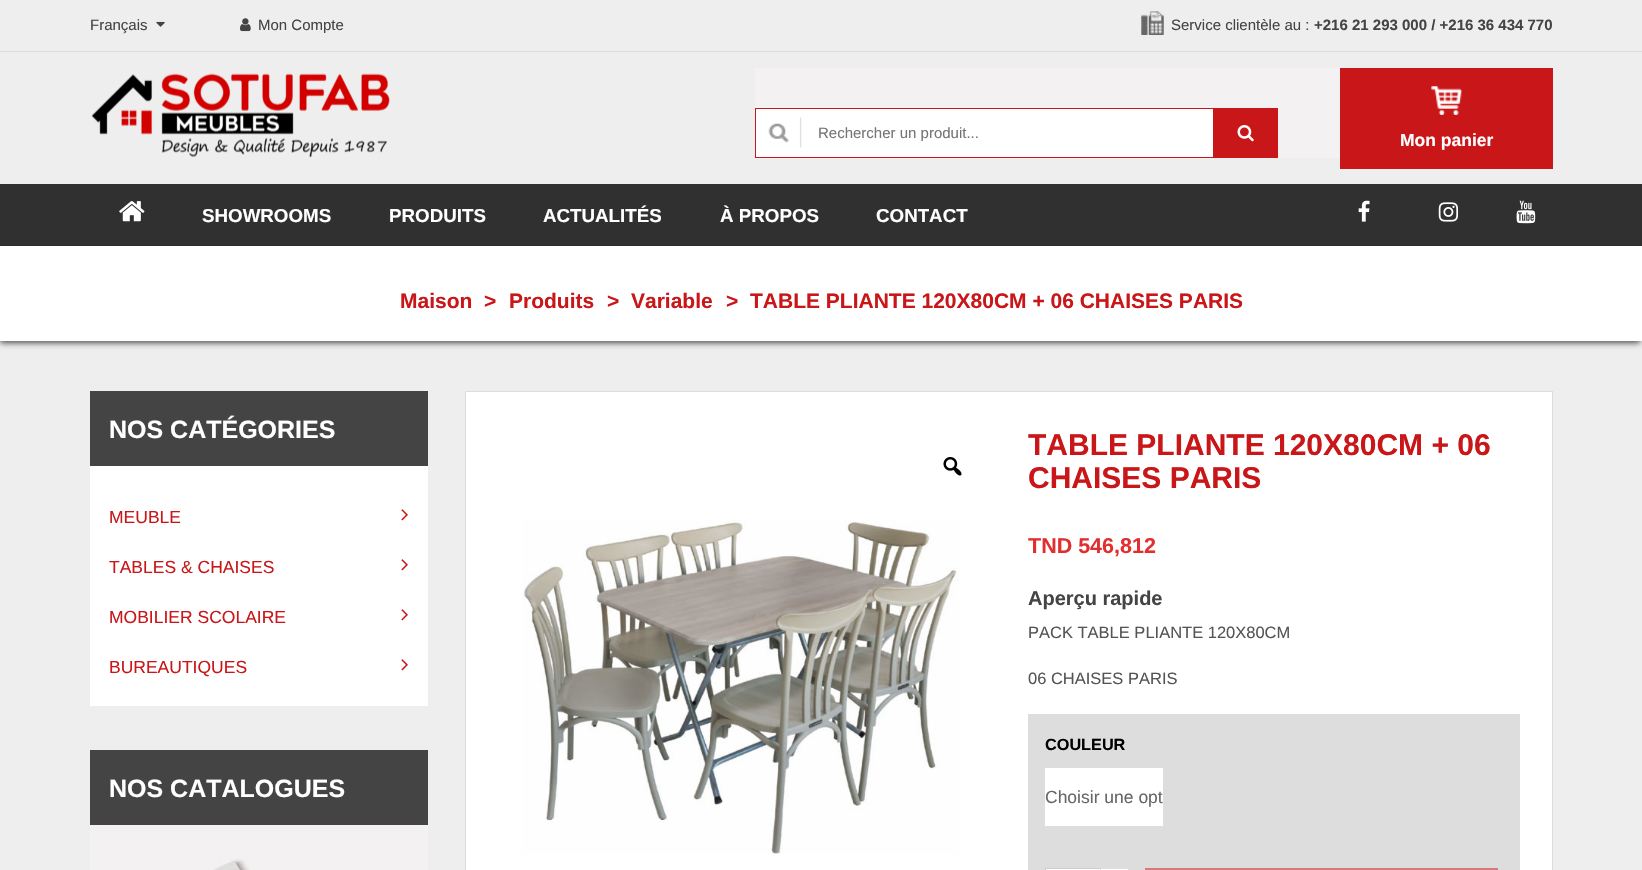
#include "include/core/SkBlurTypes.h"
#include "include/core/SkCanvas.h"
#include "include/core/SkData.h"
#include "include/core/SkFont.h"
#include "include/core/SkFontMgr.h"
#include "include/core/SkImage.h"
#include "include/core/SkMaskFilter.h"
#include "include/core/SkPaint.h"
#include "include/core/SkPathBuilder.h"
#include "include/core/SkTextBlob.h"
#include "include/effects/SkDashPathEffect.h"
#include "include/effects/SkGradientShader.h"
#include "include/utils/SkParsePath.h"

extern sk_sp<SkFontMgr> fontMgr;

void draw(SkCanvas* canvas) {
    SkPaint p;
    p.setAntiAlias(true);
    auto font = [&](const char* family, int weight, float size, bool italic = false) {
        SkFontStyle style(weight, SkFontStyle::kNormal_Width,
            italic ? SkFontStyle::kItalic_Slant : SkFontStyle::kUpright_Slant);
        SkFont result(fontMgr->matchFamilyStyle(family, style), size);
        result.setSubpixel(true);
        return result;
    };
    auto drawPhoto = [&](const char* path, float l, float t, float r, float b) {
        auto image = SkImages::DeferredFromEncodedData(SkData::MakeFromFileName(path));
        canvas->drawImageRect(image, SkRect::MakeLTRB(l, t, r, b), SkSamplingOptions());
    };
    canvas->clear(0xFFEEEEEE);
    p.setColor(0xFFDDDDDD);
    canvas->drawRect(SkRect::MakeLTRB(0, 51, 1642, 52), p);
    auto font1 = font("Liberation Sans", 400, 15);
    p.setColor(0xFF444444);
    canvas->drawString("Français", 90, 30, font1, p);
    drawPhoto("media/1.png", 156, 21, 165, 27);
    drawPhoto("media/2.png", 240, 18, 251, 32);
    canvas->drawString("Mon Compte", 258, 30, font1, p);
    drawPhoto("media/3.png", 1141, 11, 1164, 35);
    canvas->drawString("Service clientèle au :", 1171, 30, font1, p);
    auto font2 = font("Liberation Sans", 700, 15);
    canvas->drawString("+216 21 293 000 / +216 36 434 770", 1314, 30, font2, p);
    drawPhoto("media/4.png", 91, 73, 390, 158);
    p.setColor(0xFFF3F1F2);
    canvas->drawRect(SkRect::MakeLTRB(755, 68, 1340, 158), p);
    p.setColor(0xFFFFFFFF);
    canvas->drawRect(SkRect::MakeLTRB(756, 109, 1213, 157), p);
    drawPhoto("media/5.png", 768, 117, 802, 148);
    p.setStyle(SkPaint::kStroke_Style);
    p.setStrokeWidth(1);
    p.setColor(0xFFC91618);
    canvas->drawRect(SkRect::MakeLTRB(755.5f, 108.5f, 1213.5f, 157.5f), p);
    p.setStyle(SkPaint::kFill_Style);
    p.setColor(0xFF757575);
    canvas->drawString("Rechercher un produit...", 818, 138, font1, p);
    p.setColor(0xFFC91618);
    canvas->drawRect(SkRect::MakeLTRB(1214, 108, 1278, 158), p);
    drawPhoto("media/6.png", 1237, 125, 1254, 142);
    canvas->drawRect(SkRect::MakeLTRB(1340, 68, 1553, 169), p);
    drawPhoto("media/7.png", 1431, 86, 1462, 115);
    auto font3 = font("Liberation Sans", 700, 17.5f);
    p.setColor(0xFFFFFFFF);
    canvas->drawString("Mon panier", 1400, 146, font3, p);
    p.setColor(0xAD000000);
    p.setMaskFilter(SkMaskFilter::MakeBlur(kNormal_SkBlurStyle, 3));
    canvas->drawRect(SkRect::MakeLTRB(0, 250, 1640, 343), p);
    p.setMaskFilter(nullptr);
    p.setColor(0xCC000000);
    canvas->drawRect(SkRect::MakeLTRB(0, 184, 1642, 246), p);
    drawPhoto("media/8.png", 119, 201, 145, 222);
    auto font4 = font("Liberation Sans", 700, 18.75f);
    p.setColor(0xFFFFFFFF);
    {
        const struct { const char* s; float x, y; } items[] = {
            {"SHOWROOMS", 202, 222},
            {"PRODUITS", 389, 222},
            {"ACTUALITÉS", 543, 222},
            {"À PROPOS", 720, 222},
            {"CONTACT", 876, 222},
        };
        for (auto [s, x, y] : items) {
            canvas->drawString(s, x, y, font4, p);
        }
    }
    drawPhoto("media/9.png", 1358, 200, 1370, 222);
    drawPhoto("media/10.png", 1438, 202, 1459, 222);
    drawPhoto("media/11.png", 1516, 200, 1536, 224);
    canvas->drawRect(SkRect::MakeLTRB(0, 246, 1642, 341), p);
    auto font5 = font("Liberation Sans", 700, 21);
    p.setColor(0xFFC91618);
    {
        const struct { const char* s; float x, y; } items[] = {
            {"Maison", 400, 308},
            {">", 484, 308},
            {"Produits", 509, 308},
            {">", 607, 308},
            {"Variable", 631, 308},
            {">", 726, 308},
            {"TABLE PLIANTE 120X80CM + 06 CHAISES PARIS", 750, 308},
        };
        for (auto [s, x, y] : items) {
            canvas->drawString(s, x, y, font5, p);
        }
    }
    p.setColor(0xFFFFFFFF);
    canvas->drawRect(SkRect::MakeLTRB(90, 466, 428, 706), p);
    p.setColor(0xFF444444);
    canvas->drawRect(SkRect::MakeLTRB(90, 391, 428, 466), p);
    auto font6 = font("Liberation Sans", 700, 25);
    p.setColor(0xFFFFFFFF);
    canvas->drawString("NOS CATÉGORIES", 109, 438, font6, p);
    auto font7 = font("Liberation Sans", 400, 17.5f);
    p.setColor(0xFFC91618);
    canvas->drawString("MEUBLE", 109, 523, font7, p);
    drawPhoto("media/12.png", 401, 509, 408, 521);
    canvas->drawString("TABLES & CHAISES", 109, 573, font7, p);
    drawPhoto("media/12.png", 401, 559, 408, 571);
    canvas->drawString("MOBILIER SCOLAIRE", 109, 623, font7, p);
    drawPhoto("media/12.png", 401, 609, 408, 621);
    canvas->drawString("BUREAUTIQUES", 109, 673, font7, p);
    drawPhoto("media/12.png", 401, 659, 408, 671);
    p.setColor(0xFFF3F1F2);
    canvas->drawRect(SkRect::MakeLTRB(90, 825, 428, 870), p);
    p.setColor(0xFF444444);
    canvas->drawRect(SkRect::MakeLTRB(90, 750, 428, 825), p);
    p.setColor(0xFFFFFFFF);
    canvas->drawString("NOS CATALOGUES", 109, 797, font6, p);
    drawPhoto("media/13.png", 213, 859, 250, 870);
    canvas->drawRect(SkRect::MakeLTRB(465.5f, 391.5f, 1552.5f, 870.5f), p);
    p.setStyle(SkPaint::kStroke_Style);
    p.setColor(0xFFDDDDDD);
    canvas->drawRect(SkRect::MakeLTRB(465.5f, 391.5f, 1552.5f, 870.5f), p);
    drawPhoto("media/14.png", 943, 457, 962, 476);
    drawPhoto("media/15.png", 522, 520, 959, 854);
    auto font8 = font("Liberation Sans", 700, 30);
    p.setStyle(SkPaint::kFill_Style);
    p.setColor(0xFFC91618);
    canvas->drawString("TABLE PLIANTE 120X80CM + 06", 1028, 455, font8, p);
    canvas->drawString("CHAISES PARIS", 1028, 488, font8, p);
    auto font9 = font("Liberation Sans", 700, 21.5f);
    p.setColor(0xFFE12F2F);
    canvas->drawString("TND 546,812", 1028, 553, font9, p);
    auto font10 = font("Liberation Sans", 700, 20);
    p.setColor(0xFF444444);
    canvas->drawString("Aperçu rapide", 1028, 605, font10, p);
    auto font11 = font("Liberation Sans", 400, 16.5f);
    p.setColor(0xFF545454);
    canvas->drawString("PACK TABLE PLIANTE 120X80CM", 1028, 638, font11, p);
    canvas->drawString("06 CHAISES PARIS", 1028, 684, font11, p);
    p.setColor(0xFFDDDDDD);
    canvas->drawRect(SkRect::MakeLTRB(1028, 714, 1520, 870), p);
    auto font12 = font("Liberation Sans", 700, 16.25f);
    p.setColor(0xFF000000);
    canvas->drawString("COULEUR", 1045, 750, font12, p);
    p.setColor(0xFFFFFFFF);
    canvas->drawRect(SkRect::MakeLTRB(1045, 768, 1163, 826), p);
    p.setColor(0xFF666666);
    canvas->drawString("Choisir une opt", 1045, 803, font7, p);
    p.setColor(0xFFFFFFFF);
    canvas->drawRect(SkRect::MakeLTRB(1045.5f, 868.5f, 1102.5f, 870.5f), p);
    p.setStyle(SkPaint::kStroke_Style);
    p.setColor(0xFFCCCCCC);
    canvas->drawRect(SkRect::MakeLTRB(1045.5f, 868.5f, 1102.5f, 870.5f), p);
    p.setStyle(SkPaint::kFill_Style);
    {
        const struct { float l, t, r, b; SkColor color; } items[] = {
            {1100, 869, 1129, 870, 0xFFFFFFFF},
            {1100, 868, 1103, 869, 0xFFDDDDDD},
            {1128, 868, 1129, 870, 0xFFDDDDDD},
            {1100, 868, 1101, 870, 0xFFDDDDDD},
            {1145, 868, 1498, 870, 0xFFD37A7B},
        };
        for (auto [l, t, r, b, color] : items) {
            p.setColor(color);
            canvas->drawRect(SkRect::MakeLTRB(l, t, r, b), p);
        }
    }
}
